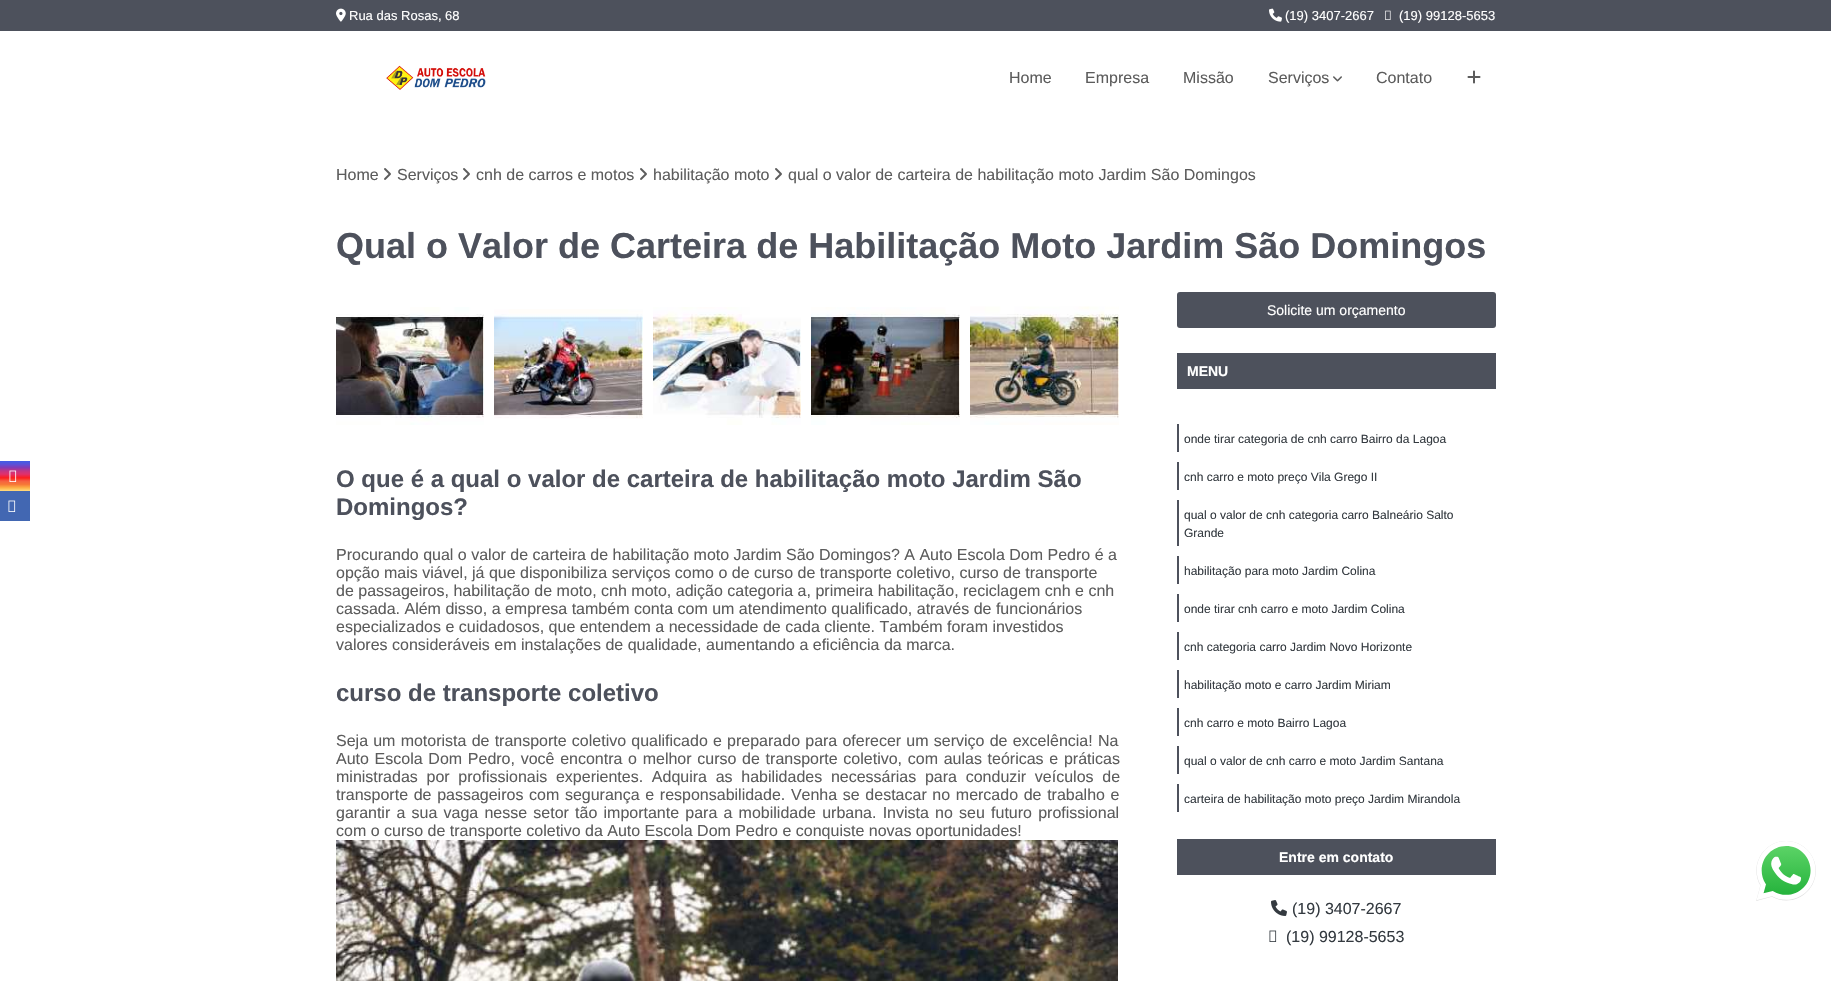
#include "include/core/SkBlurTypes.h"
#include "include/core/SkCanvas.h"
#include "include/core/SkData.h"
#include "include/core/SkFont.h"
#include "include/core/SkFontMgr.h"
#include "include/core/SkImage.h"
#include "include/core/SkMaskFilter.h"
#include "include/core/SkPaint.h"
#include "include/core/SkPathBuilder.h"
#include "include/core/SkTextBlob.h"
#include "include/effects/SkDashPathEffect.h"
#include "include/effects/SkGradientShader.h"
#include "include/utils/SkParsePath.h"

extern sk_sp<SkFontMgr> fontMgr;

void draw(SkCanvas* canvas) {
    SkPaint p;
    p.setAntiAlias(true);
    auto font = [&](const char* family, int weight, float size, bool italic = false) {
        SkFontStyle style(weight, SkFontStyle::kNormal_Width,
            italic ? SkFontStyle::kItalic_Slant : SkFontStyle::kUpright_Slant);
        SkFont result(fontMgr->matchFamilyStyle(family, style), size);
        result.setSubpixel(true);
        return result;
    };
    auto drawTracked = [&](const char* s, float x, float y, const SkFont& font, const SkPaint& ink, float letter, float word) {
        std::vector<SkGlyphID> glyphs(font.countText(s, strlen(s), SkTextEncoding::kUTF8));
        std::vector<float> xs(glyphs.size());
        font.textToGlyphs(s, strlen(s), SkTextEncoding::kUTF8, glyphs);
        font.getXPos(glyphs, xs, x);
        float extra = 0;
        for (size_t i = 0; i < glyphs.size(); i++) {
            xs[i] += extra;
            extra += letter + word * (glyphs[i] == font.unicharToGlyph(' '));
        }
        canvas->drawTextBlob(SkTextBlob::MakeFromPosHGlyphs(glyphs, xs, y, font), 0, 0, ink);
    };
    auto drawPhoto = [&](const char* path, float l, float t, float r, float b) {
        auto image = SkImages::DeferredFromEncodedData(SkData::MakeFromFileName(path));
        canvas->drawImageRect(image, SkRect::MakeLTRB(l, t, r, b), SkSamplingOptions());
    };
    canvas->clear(0xFFFFFFFF);
    p.setColor(0xFF4D515C);
    canvas->drawRect(SkRect::MakeLTRB(0, 0, 1831, 31), p);
    drawPhoto("media/1.png", 336, 8, 346, 22);
    auto font1 = font("Liberation Sans", 400, 13);
    p.setColor(0xFFFFFFFF);
    canvas->drawString("Rua das Rosas, 68", 349, 20, font1, p);
    drawPhoto("media/2.png", 1269, 8, 1282, 22);
    canvas->drawString("(19) 3407-2667", 1285, 20, font1, p);
    drawPhoto("media/3.png", 1385, 10, 1391, 20);
    canvas->drawString("(19) 99128-5653", 1399, 20, font1, p);
    drawPhoto("media/4.png", 386, 65, 486, 90);
    auto font2 = font("Liberation Sans", 400, 16);
    p.setColor(0xFF5C5C5C);
    {
        const struct { const char* s; float x, y; } items[] = {
            {"Home", 1009, 83},
            {"Empresa", 1085, 83},
            {"Missão", 1183, 83},
            {"Serviços", 1268, 83},
        };
        for (auto [s, x, y] : items) {
            canvas->drawString(s, x, y, font2, p);
        }
    }
    drawPhoto("media/5.png", 1333, 76, 1342, 82);
    canvas->drawString("Contato", 1376, 83, font2, p);
    drawPhoto("media/6.png", 1467, 70, 1481, 84);
    canvas->drawString("Home", 336, 180, font2, p);
    drawPhoto("media/7.png", 384, 168, 391, 180);
    canvas->drawString("Serviços", 397, 180, font2, p);
    drawPhoto("media/7.png", 463, 168, 470, 180);
    canvas->drawString("cnh de carros e motos", 476, 180, font2, p);
    drawPhoto("media/7.png", 640, 168, 647, 180);
    canvas->drawString("habilitação moto", 653, 180, font2, p);
    drawPhoto("media/7.png", 775, 168, 782, 180);
    canvas->drawString("qual o valor de carteira de habilitação moto Jardim São Domingos", 788, 180, font2, p);
    auto font3 = font("Liberation Sans", 700, 36);
    p.setColor(0xFF4D515C);
    canvas->drawString("Qual o Valor de Carteira de Habilitação Moto Jardim São Domingos", 336, 258, font3, p);
    drawPhoto("media/8.png", 336, 307, 484, 425);
    drawPhoto("media/9.png", 494, 309, 643, 419);
    drawPhoto("media/10.png", 653, 307, 801, 425);
    drawPhoto("media/11.png", 811, 307, 960, 425);
    drawPhoto("media/12.png", 970, 306, 1119, 425);
    auto font4 = font("Liberation Sans", 700, 24);
    canvas->drawString("O que é a qual o valor de carteira de habilitação moto Jardim São", 336, 487, font4, p);
    canvas->drawString("Domingos?", 336, 515, font4, p);
    p.setColor(0xFF5C5C5C);
    {
        const struct { const char* s; float x, y; } items[] = {
            {"Procurando qual o valor de carteira de habilitação moto Jardim São Domingos? A Auto Escola Dom Pedro é a", 336, 560},
            {"opção mais viável, já que disponibiliza serviços como o de curso de transporte coletivo, curso de transporte", 336, 578},
            {"de passageiros, habilitação de moto, cnh moto, adição categoria a, primeira habilitação, reciclagem cnh e cnh", 336, 596},
            {"cassada. Além disso, a empresa também conta com um atendimento qualificado, através de funcionários", 336, 614},
            {"especializados e cuidadosos, que entendem a necessidade de cada cliente. Também foram investidos", 336, 632},
            {"valores consideráveis em instalações de qualidade, aumentando a eficiência da marca.", 336, 650},
        };
        for (auto [s, x, y] : items) {
            canvas->drawString(s, x, y, font2, p);
        }
    }
    p.setColor(0xFF4D515C);
    canvas->drawString("curso de transporte coletivo", 336, 701, font4, p);
    p.setColor(0xFF5C5C5C);
    drawTracked("Seja um motorista de transporte coletivo qualificado e preparado para oferecer um serviço de excelência! Na", 336, 746, font2, p, 0, 0.75f);
    drawTracked("Auto Escola Dom Pedro, você encontra o melhor curso de transporte coletivo, com aulas teóricas e práticas", 336, 764, font2, p, 0, 1.25f);
    drawTracked("ministradas por profissionais experientes. Adquira as habilidades necessárias para conduzir veículos de", 336, 782, font2, p, 0, 4.25f);
    drawTracked("transporte de passageiros com segurança e responsabilidade. Venha se destacar no mercado de trabalho e", 336, 800, font2, p, 0, 1.2f);
    drawTracked("garantir a sua vaga nesse setor tão importante para a mobilidade urbana. Invista no seu futuro profissional", 336, 818, font2, p, 0, 1.75f);
    canvas->drawString("com o curso de transporte coletivo da Auto Escola Dom Pedro e conquiste novas oportunidades!", 336, 836, font2, p);
    drawPhoto("media/13.png", 336, 840, 1118, 981);
    p.setColor(0xFF4D515C);
    canvas->drawRoundRect(SkRect::MakeLTRB(1177, 292, 1496, 328), 3, 3, p);
    auto font5 = font("Liberation Sans", 400, 14);
    p.setColor(0xFFFFFFFF);
    canvas->drawString("Solicite um orçamento", 1267, 315, font5, p);
    p.setColor(0xFF4D515C);
    canvas->drawRect(SkRect::MakeLTRB(1177, 353, 1496, 389), p);
    auto font6 = font("Liberation Sans", 700, 14);
    p.setColor(0xFFFFFFFF);
    canvas->drawString("MENU", 1187, 376, font6, p);
    p.setColor(0xFF4D515C);
    canvas->drawRect(SkRect::MakeLTRB(1177, 424, 1179, 452), p);
    auto font7 = font("Liberation Sans", 400, 12);
    p.setColor(0xFF343A40);
    canvas->drawString("onde tirar categoria de cnh carro Bairro da Lagoa", 1184, 443, font7, p);
    p.setColor(0xFF4D515C);
    canvas->drawRect(SkRect::MakeLTRB(1177, 462, 1179, 490), p);
    p.setColor(0xFF343A40);
    canvas->drawString("cnh carro e moto preço Vila Grego II", 1184, 481, font7, p);
    p.setColor(0xFF4D515C);
    canvas->drawRect(SkRect::MakeLTRB(1177, 500, 1179, 546), p);
    p.setColor(0xFF343A40);
    canvas->drawString("qual o valor de cnh categoria carro Balneário Salto", 1184, 519, font7, p);
    canvas->drawString("Grande", 1184, 537, font7, p);
    p.setColor(0xFF4D515C);
    canvas->drawRect(SkRect::MakeLTRB(1177, 556, 1179, 584), p);
    p.setColor(0xFF343A40);
    canvas->drawString("habilitação para moto Jardim Colina", 1184, 575, font7, p);
    p.setColor(0xFF4D515C);
    canvas->drawRect(SkRect::MakeLTRB(1177, 594, 1179, 622), p);
    p.setColor(0xFF343A40);
    canvas->drawString("onde tirar cnh carro e moto Jardim Colina", 1184, 613, font7, p);
    p.setColor(0xFF4D515C);
    canvas->drawRect(SkRect::MakeLTRB(1177, 632, 1179, 660), p);
    p.setColor(0xFF343A40);
    canvas->drawString("cnh categoria carro Jardim Novo Horizonte", 1184, 651, font7, p);
    p.setColor(0xFF4D515C);
    canvas->drawRect(SkRect::MakeLTRB(1177, 670, 1179, 698), p);
    p.setColor(0xFF343A40);
    canvas->drawString("habilitação moto e carro Jardim Miriam", 1184, 689, font7, p);
    p.setColor(0xFF4D515C);
    canvas->drawRect(SkRect::MakeLTRB(1177, 708, 1179, 736), p);
    p.setColor(0xFF343A40);
    canvas->drawString("cnh carro e moto Bairro Lagoa", 1184, 727, font7, p);
    p.setColor(0xFF4D515C);
    canvas->drawRect(SkRect::MakeLTRB(1177, 746, 1179, 774), p);
    p.setColor(0xFF343A40);
    canvas->drawString("qual o valor de cnh carro e moto Jardim Santana", 1184, 765, font7, p);
    p.setColor(0xFF4D515C);
    canvas->drawRect(SkRect::MakeLTRB(1177, 784, 1179, 812), p);
    p.setColor(0xFF343A40);
    canvas->drawString("carteira de habilitação moto preço Jardim Mirandola", 1184, 803, font7, p);
    p.setColor(0xFF4D515C);
    canvas->drawRect(SkRect::MakeLTRB(1177, 839, 1496, 875), p);
    p.setColor(0xFFFFFFFF);
    canvas->drawString("Entre em contato", 1279, 862, font6, p);
    drawPhoto("media/14.png", 1271, 900, 1287, 916);
    p.setColor(0xFF343A40);
    canvas->drawString("(19) 3407-2667", 1292, 914, font2, p);
    drawPhoto("media/15.png", 1269, 930, 1277, 942);
    canvas->drawString("(19) 99128-5653", 1286, 942, font2, p);
    {
        const SkColor colors[] = {0xFF405DE6, 0xFF5B51D8, 0xFF833AB4, 0xFFC13584, 0xFFE1306C, 0xFFFD1D1D, 0xFFF56040, 0xFFF77737, 0xFFFCAF45, 0xFFFFDC80};
        const float stops[] = {0, 0.11f, 0.22f, 0.33f, 0.44f, 0.56f, 0.67f, 0.78f, 0.89f, 1};
        const SkPoint ends[] = {{15, 461}, {15, 491}};
        p.setShader(SkGradientShader::MakeLinear(ends, colors, stops, 10, SkTileMode::kClamp));
        p.setAlpha(255);
    }
    canvas->drawRect(SkRect::MakeLTRB(0, 461, 30, 491), p);
    drawPhoto("media/16.png", 9, 470, 17, 482);
    p.setShader(nullptr);
    p.setColor(0xFF4267B2);
    canvas->drawRect(SkRect::MakeLTRB(0, 491, 30, 521), p);
    drawPhoto("media/17.png", 8, 500, 16, 512);
    drawPhoto("media/18.png", 1756, 841, 1816, 901);
}
